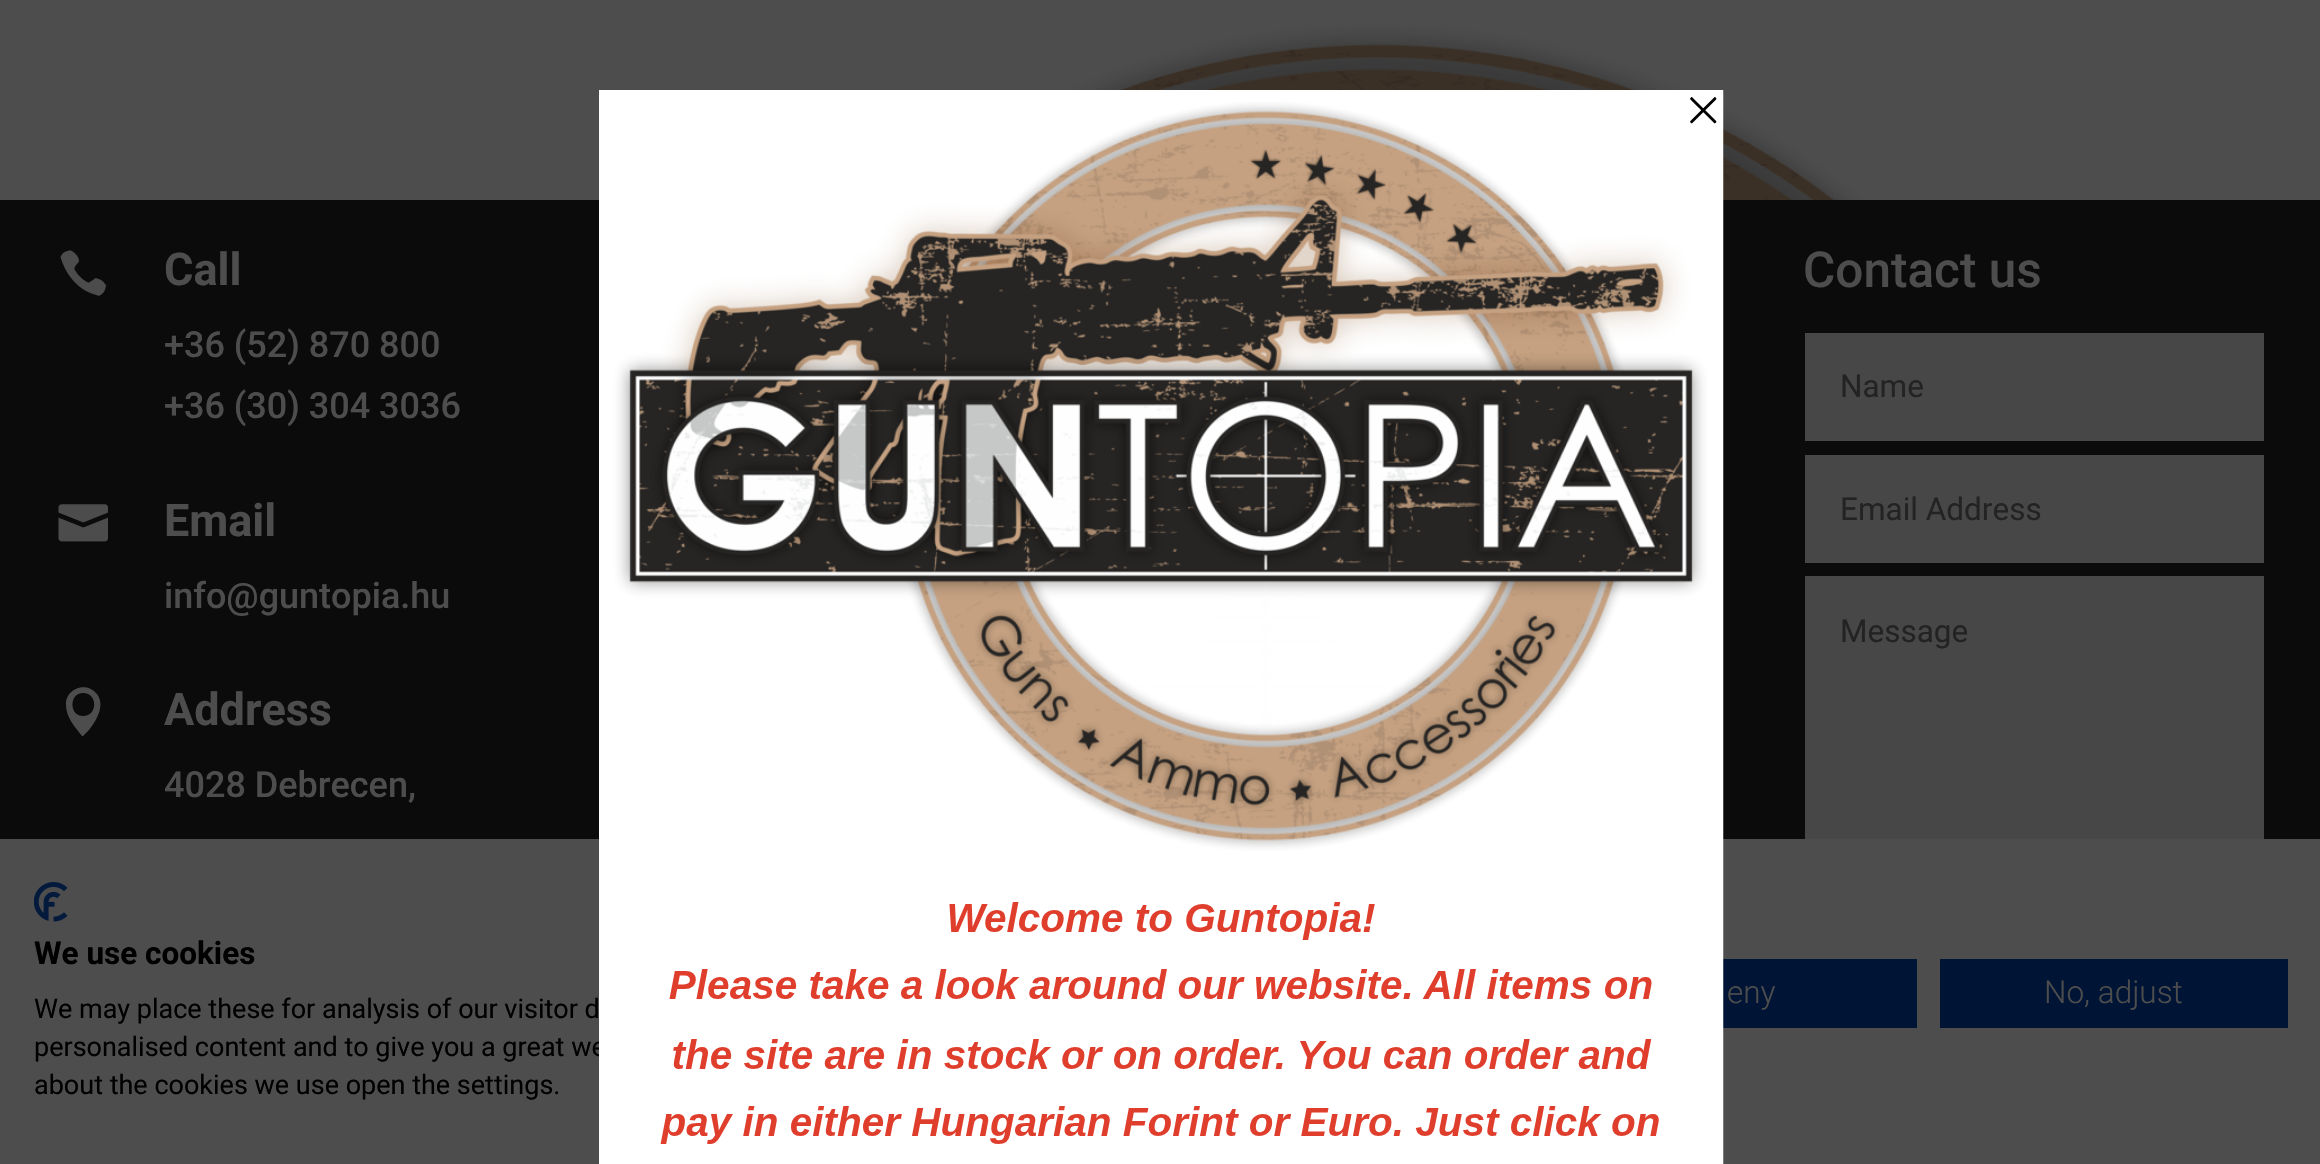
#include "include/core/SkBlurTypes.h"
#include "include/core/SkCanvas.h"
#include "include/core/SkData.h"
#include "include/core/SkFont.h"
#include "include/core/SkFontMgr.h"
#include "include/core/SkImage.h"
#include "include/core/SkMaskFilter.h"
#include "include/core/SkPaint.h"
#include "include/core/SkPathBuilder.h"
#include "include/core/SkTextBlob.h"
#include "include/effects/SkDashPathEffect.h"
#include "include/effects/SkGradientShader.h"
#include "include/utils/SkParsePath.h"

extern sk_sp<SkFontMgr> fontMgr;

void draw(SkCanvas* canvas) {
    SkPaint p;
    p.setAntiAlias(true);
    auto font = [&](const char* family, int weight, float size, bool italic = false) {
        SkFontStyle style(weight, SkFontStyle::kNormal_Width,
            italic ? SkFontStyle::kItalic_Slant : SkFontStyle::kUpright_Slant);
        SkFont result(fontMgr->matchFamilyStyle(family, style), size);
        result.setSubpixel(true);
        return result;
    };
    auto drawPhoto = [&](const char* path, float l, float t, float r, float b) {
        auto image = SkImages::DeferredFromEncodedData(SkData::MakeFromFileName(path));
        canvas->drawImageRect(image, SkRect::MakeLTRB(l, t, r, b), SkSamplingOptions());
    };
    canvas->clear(0xFF4D4D4D);
    drawPhoto("media/1.png", 1072, 26, 1860, 200);
    p.setColor(0xFF0B0B0B);
    canvas->drawRect(SkRect::MakeLTRB(0, 200, 2320, 839), p);
    auto font1 = font("Roboto", 400, 27);
    p.setColor(0xFF000000);
    canvas->drawString("personalised content and to give you a great we", 34, 1056, font1, p);
    p.setColor(0xFF001535);
    canvas->drawRect(SkRect::MakeLTRB(1723, 959, 1917, 1028), p);
    drawPhoto("media/2.png", 599, 90, 1724, 1164);
    drawPhoto("media/3.png", 60, 250, 106, 296);
    auto font2 = font("Roboto", 700, 45);
    p.setColor(0xFF4D4D4D);
    canvas->drawString("Call", 164, 285, font2, p);
    auto font3 = font("Roboto", 500, 36);
    canvas->drawString("+36 (52) 870 800", 164, 357, font3, p);
    canvas->drawString("+36 (30) 304 3036", 164, 418, font3, p);
    drawPhoto("media/4.png", 58, 504, 108, 542);
    canvas->drawString("Email", 164, 536, font2, p);
    canvas->drawString("info@guntopia.hu", 164, 608, font3, p);
    canvas->drawPath(SkPathBuilder().moveTo(82, 736).lineTo(83, 736).lineTo(89, 730).cubicTo(97, 720, 106, 704, 96, 693).cubicTo(86, 681, 65, 689, 66, 705).cubicTo(66, 717, 75, 727, 82, 736).close().moveTo(83, 693).cubicTo(98, 693, 98, 716, 83, 716).cubicTo(69, 716, 69, 693, 83, 693).close().detach(), p);
    canvas->drawString("Address", 164, 725, font2, p);
    canvas->drawString("4028 Debrecen,", 164, 797, font3, p);
    auto font4 = font("Roboto", 500, 49.5f);
    canvas->drawString("Contact us", 1803, 287, font4, p);
    p.setColor(0xFF474747);
    canvas->drawRect(SkRect::MakeLTRB(1805, 333, 2264, 441), p);
    auto font5 = font("Roboto", 400, 31.5f);
    p.setColor(0xFF232323);
    canvas->drawString("Name", 1840, 397, font5, p);
    p.setColor(0xFF474747);
    canvas->drawRect(SkRect::MakeLTRB(1805, 455, 2264, 563), p);
    p.setColor(0xFF232323);
    canvas->drawString("Email Address", 1840, 520, font5, p);
    p.setColor(0xFF474747);
    canvas->drawRect(SkRect::MakeLTRB(1805, 576, 2264, 839), p);
    p.setColor(0xFF232323);
    canvas->drawString("Message", 1840, 642, font5, p);
    drawPhoto("media/5.png", 34, 882, 68, 922);
    auto font6 = font("Roboto", 700, 31.5f);
    p.setColor(0xFF000000);
    canvas->drawString("We use cookies", 34, 964, font6, p);
    canvas->drawString("We may place these for analysis of our visitor d", 34, 1018, font1, p);
    canvas->drawString("about the cookies we use open the settings.", 34, 1094, font1, p);
    auto font7 = font("Roboto", 300, 31.5f);
    p.setColor(0xFF4D4D4D);
    canvas->drawString("eny", 1727, 1003, font7, p);
    p.setColor(0xFF001535);
    canvas->drawRect(SkRect::MakeLTRB(1940, 959, 2288, 1028), p);
    p.setColor(0xFF4D4D4D);
    canvas->drawString("No, adjust", 2044, 1003, font7, p);
}
